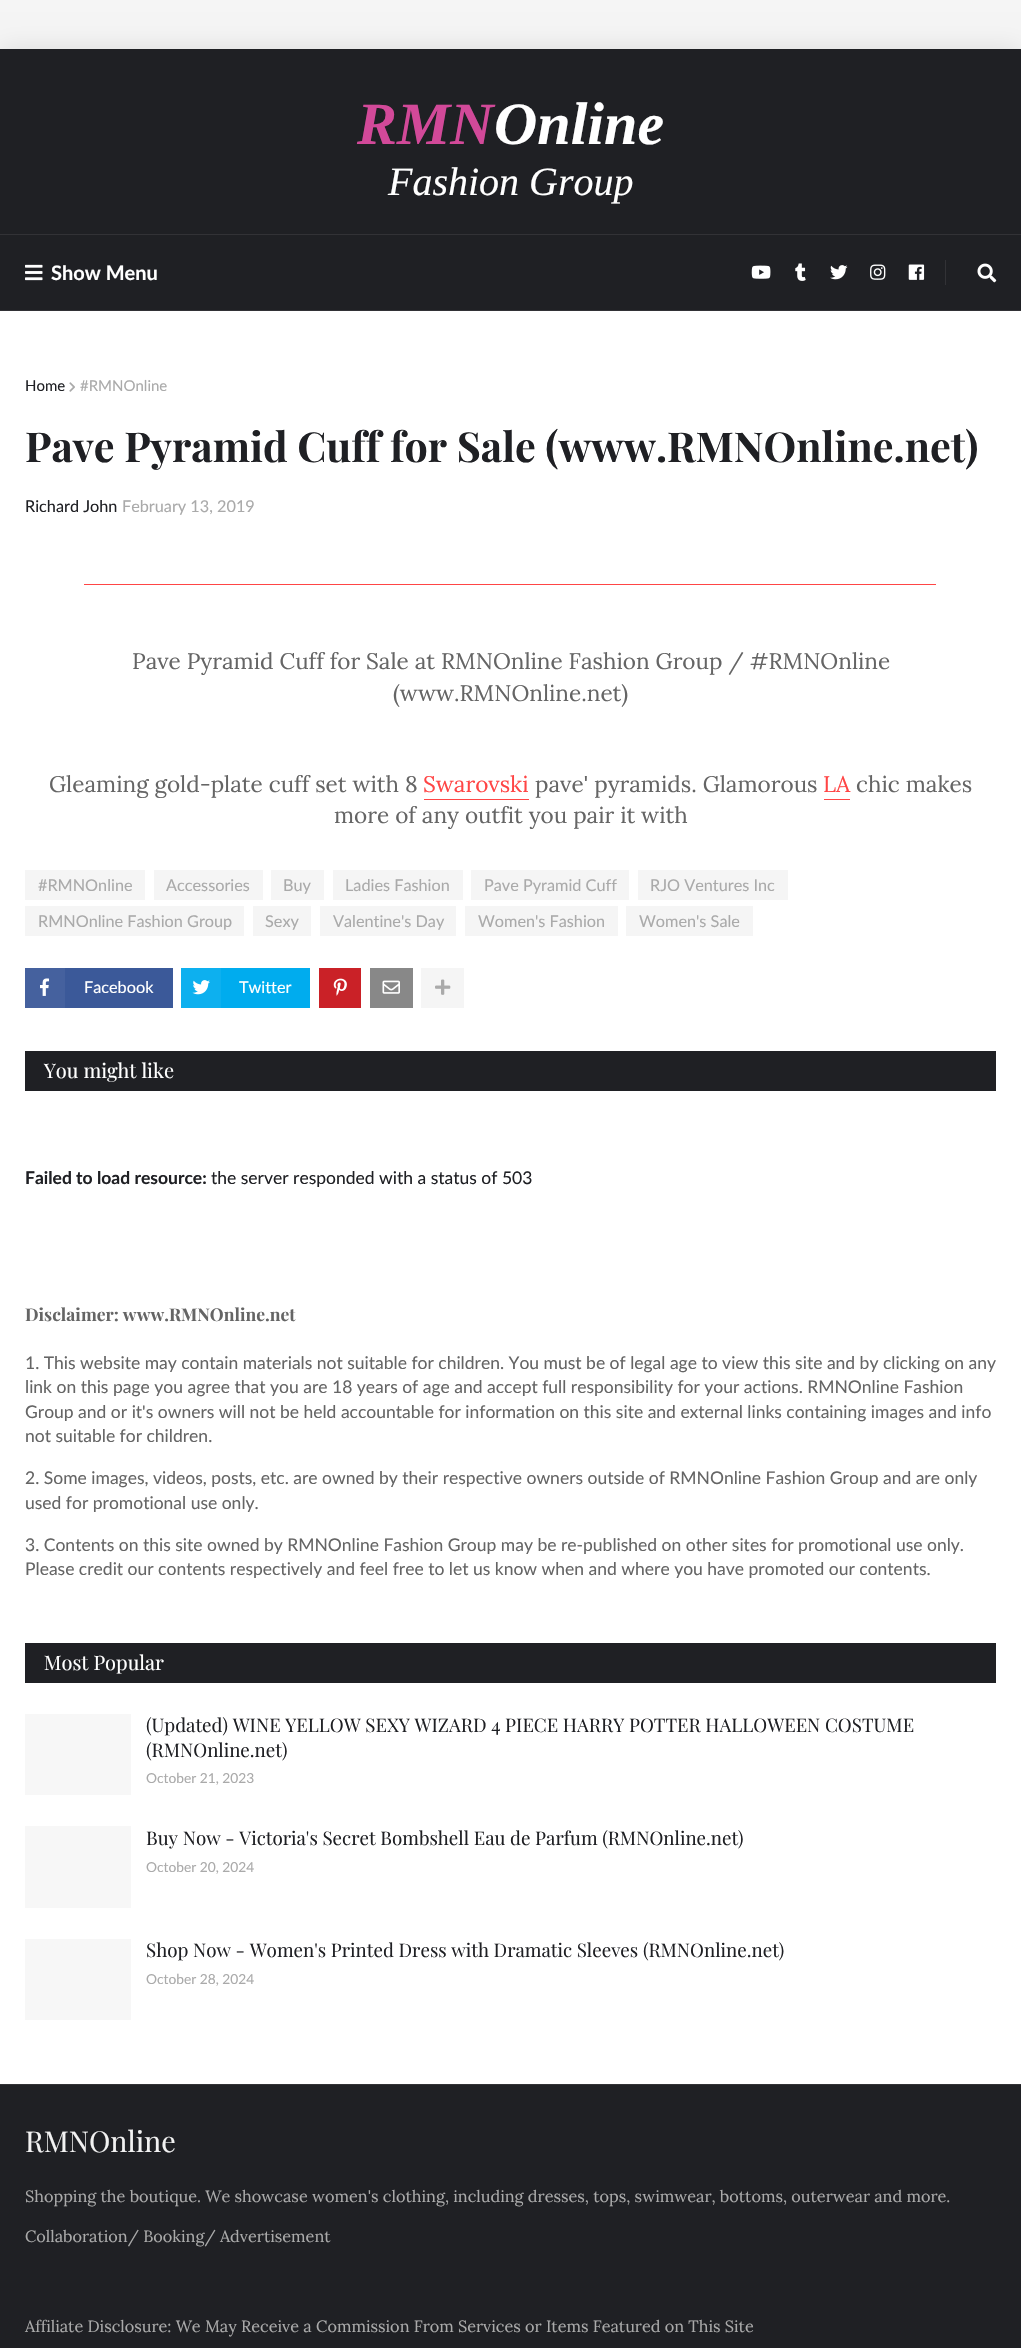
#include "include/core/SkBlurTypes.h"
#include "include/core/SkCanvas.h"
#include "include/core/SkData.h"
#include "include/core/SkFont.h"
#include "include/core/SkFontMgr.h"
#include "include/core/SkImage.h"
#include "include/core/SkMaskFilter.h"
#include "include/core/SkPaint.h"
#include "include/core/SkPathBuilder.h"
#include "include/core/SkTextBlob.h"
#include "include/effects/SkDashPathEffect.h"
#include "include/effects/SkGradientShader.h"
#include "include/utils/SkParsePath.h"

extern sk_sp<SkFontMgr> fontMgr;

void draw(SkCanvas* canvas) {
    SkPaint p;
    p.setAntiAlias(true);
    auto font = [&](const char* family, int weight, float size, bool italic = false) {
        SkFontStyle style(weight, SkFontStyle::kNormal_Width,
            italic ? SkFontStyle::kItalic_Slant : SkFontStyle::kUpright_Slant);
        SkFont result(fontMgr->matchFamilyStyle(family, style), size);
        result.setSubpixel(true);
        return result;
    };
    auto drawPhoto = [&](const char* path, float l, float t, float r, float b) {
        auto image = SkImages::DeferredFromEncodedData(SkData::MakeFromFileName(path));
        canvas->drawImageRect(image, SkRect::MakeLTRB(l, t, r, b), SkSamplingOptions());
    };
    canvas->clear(0xFFF5F5F5);
    p.setColor(0x1A000000);
    p.setMaskFilter(SkMaskFilter::MakeBlur(kNormal_SkBlurStyle, 12.5f));
    canvas->drawRect(SkRect::MakeLTRB(0, 49, 1021, 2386), p);
    p.setMaskFilter(nullptr);
    {
        const struct { float l, t, r, b; SkColor color; } items[] = {
            {0, 311, 1021, 2084, 0xFFFFFFFF},
            {0, 49, 1021, 310, 0xFF1F2024},
            {0, 310, 1021, 311, 0xFF323236},
        };
        for (auto [l, t, r, b, color] : items) {
            p.setColor(color);
            canvas->drawRect(SkRect::MakeLTRB(l, t, r, b), p);
        }
    }
    auto font1 = font("Liberation Serif", 700, 60, true);
    p.setColor(0xFFD24999);
    canvas->drawString("RMN", 357, 144, font1, p);
    p.setColor(0xFFFFFFFF);
    canvas->drawString("Online", 494, 144, font1, p);
    auto font2 = font("Liberation Serif", 400, 40, true);
    canvas->drawString("Fashion Group", 388, 195, font2, p);
    p.setColor(0xFF323236);
    canvas->drawRect(SkRect::MakeLTRB(0, 234, 1021, 235), p);
    drawPhoto("media/1.png", 25, 264, 43, 281);
    auto font3 = font("Lato", 700, 20);
    p.setColor(0xFFFFFFFF);
    canvas->drawString("Show Menu", 51, 280, font3, p);
    drawPhoto("media/2.png", 751, 265, 771, 279);
    drawPhoto("media/3.png", 795, 263, 806, 281);
    drawPhoto("media/4.png", 830, 265, 848, 280);
    drawPhoto("media/5.png", 870, 264, 886, 280);
    drawPhoto("media/6.png", 908, 264, 925, 280);
    p.setColor(0xFF323236);
    canvas->drawRect(SkRect::MakeLTRB(945, 260, 946, 285), p);
    drawPhoto("media/7.png", 977, 263, 997, 283);
    auto font4 = font("Lato", 400, 15);
    p.setColor(0xFF1F2024);
    canvas->drawString("Home", 25, 391, font4, p);
    drawPhoto("media/8.png", 69, 382, 75, 392);
    p.setColor(0xFFAAAAAA);
    canvas->drawString("#RMNOnline", 80, 391, font4, p);
    auto font5 = font("Playfair Display", 700, 41.25f);
    p.setColor(0xFF1F2024);
    canvas->drawString("Pave Pyramid Cuff for Sale (www.RMNOnline.net)", 25, 462, font5, p);
    auto font6 = font("Lato", 400, 16.25f);
    canvas->drawString("Richard John", 25, 512, font6, p);
    p.setColor(0xFFAAAAAA);
    canvas->drawString("February 13, 2019", 122, 512, font6, p);
    p.setColor(0xFFFF4545);
    canvas->drawRect(SkRect::MakeLTRB(84, 584, 936, 585), p);
    auto font7 = font("Lora", 400, 22.5f);
    p.setColor(0xFF656565);
    {
        const struct { const char* s; float x, y; } items[] = {
            {"Pave Pyramid Cuff for Sale at RMNOnline Fashion Group / #RMNOnline", 132, 669},
            {"(www.RMNOnline.net)", 393, 701},
            {"Gleaming gold-plate cuff set with 8", 49, 792},
        };
        for (auto [s, x, y] : items) {
            canvas->drawString(s, x, y, font7, p);
        }
    }
    p.setColor(0xFFFF4545);
    canvas->drawString("Swarovski", 423, 792, font7, p);
    canvas->drawRect(SkRect::MakeLTRB(424, 799, 529, 800), p);
    p.setColor(0xFF656565);
    canvas->drawString("pave' pyramids. Glamorous", 535, 792, font7, p);
    p.setColor(0xFFFF4545);
    canvas->drawRect(SkRect::MakeLTRB(824, 799, 850, 800), p);
    canvas->drawString("LA", 823, 792, font7, p);
    p.setColor(0xFF656565);
    canvas->drawString("chic makes", 856, 792, font7, p);
    canvas->drawString("more of any outfit you pair it with", 334, 823, font7, p);
    p.setColor(0xFFF5F5F5);
    canvas->drawRect(SkRect::MakeLTRB(25, 870, 145, 900), p);
    p.setColor(0xFFAAAAAA);
    canvas->drawString("#RMNOnline", 38, 891, font6, p);
    p.setColor(0xFFF5F5F5);
    canvas->drawRect(SkRect::MakeLTRB(154, 870, 263, 900), p);
    p.setColor(0xFFAAAAAA);
    canvas->drawString("Accessories", 166, 891, font6, p);
    p.setColor(0xFFF5F5F5);
    canvas->drawRect(SkRect::MakeLTRB(271, 870, 324, 900), p);
    p.setColor(0xFFAAAAAA);
    canvas->drawString("Buy", 283, 891, font6, p);
    p.setColor(0xFFF5F5F5);
    canvas->drawRect(SkRect::MakeLTRB(333, 870, 463, 900), p);
    p.setColor(0xFFAAAAAA);
    canvas->drawString("Ladies Fashion", 345, 891, font6, p);
    p.setColor(0xFFF5F5F5);
    canvas->drawRect(SkRect::MakeLTRB(471, 870, 629, 900), p);
    p.setColor(0xFFAAAAAA);
    canvas->drawString("Pave Pyramid Cuff", 484, 891, font6, p);
    p.setColor(0xFFF5F5F5);
    canvas->drawRect(SkRect::MakeLTRB(638, 870, 788, 900), p);
    p.setColor(0xFFAAAAAA);
    canvas->drawString("RJO Ventures Inc", 650, 891, font6, p);
    p.setColor(0xFFF5F5F5);
    canvas->drawRect(SkRect::MakeLTRB(25, 906, 244, 936), p);
    p.setColor(0xFFAAAAAA);
    canvas->drawString("RMNOnline Fashion Group", 38, 927, font6, p);
    p.setColor(0xFFF5F5F5);
    canvas->drawRect(SkRect::MakeLTRB(253, 906, 311, 936), p);
    p.setColor(0xFFAAAAAA);
    canvas->drawString("Sexy", 265, 927, font6, p);
    p.setColor(0xFFF5F5F5);
    canvas->drawRect(SkRect::MakeLTRB(320, 906, 456, 936), p);
    p.setColor(0xFFAAAAAA);
    canvas->drawString("Valentine's Day", 333, 927, font6, p);
    p.setColor(0xFFF5F5F5);
    canvas->drawRect(SkRect::MakeLTRB(465, 906, 618, 936), p);
    p.setColor(0xFFAAAAAA);
    canvas->drawString("Women's Fashion", 478, 927, font6, p);
    p.setColor(0xFFF5F5F5);
    canvas->drawRect(SkRect::MakeLTRB(626, 906, 753, 936), p);
    p.setColor(0xFFAAAAAA);
    canvas->drawString("Women's Sale", 639, 927, font6, p);
    p.setColor(0xFF3B5999);
    canvas->drawRect(SkRect::MakeLTRB(65, 968, 173, 1008), p);
    p.setColor(0xFF45619E);
    canvas->drawRect(SkRect::MakeLTRB(25, 968, 65, 1008), p);
    drawPhoto("media/9.png", 40, 978, 50, 996);
    p.setColor(0xFFFFFFFF);
    canvas->drawString("Facebook", 84, 993, font6, p);
    p.setColor(0xFF00ACEE);
    canvas->drawRect(SkRect::MakeLTRB(221, 968, 310, 1008), p);
    p.setColor(0xFF0DB0EF);
    canvas->drawRect(SkRect::MakeLTRB(181, 968, 221, 1008), p);
    drawPhoto("media/10.png", 192, 980, 210, 995);
    p.setColor(0xFFFFFFFF);
    canvas->drawString("Twitter", 239, 993, font6, p);
    p.setColor(0xFFCA2127);
    canvas->drawRect(SkRect::MakeLTRB(319, 968, 361, 1008), p);
    drawPhoto("media/11.png", 333, 978, 347, 996);
    p.setColor(0xFF888888);
    canvas->drawRect(SkRect::MakeLTRB(370, 968, 413, 1008), p);
    drawPhoto("media/12.png", 382, 980, 400, 994);
    p.setColor(0xFFF5F5F5);
    canvas->drawRect(SkRect::MakeLTRB(421, 968, 464, 1008), p);
    drawPhoto("media/13.png", 435, 979, 451, 995);
    p.setColor(0xFF1F2024);
    canvas->drawRect(SkRect::MakeLTRB(25, 1051, 996, 1091), p);
    auto font8 = font("Playfair Display", 400, 20);
    p.setColor(0xFFFFFFFF);
    canvas->drawString("You might like", 44, 1078, font8, p);
    auto font9 = font("Lato", 700, 17.5f);
    p.setColor(0xFF1F2024);
    canvas->drawString("Failed to load resource:", 25, 1184, font9, p);
    auto font10 = font("Lato", 400, 17.5f);
    canvas->drawString("the server responded with a status of 503", 211, 1184, font10, p);
    auto font11 = font("Playfair Display", 700, 17.5f);
    p.setColor(0xFF656565);
    canvas->drawString("Disclaimer: www.RMNOnline.net", 25, 1321, font11, p);
    {
        const struct { const char* s; float x, y; } items[] = {
            {"1. This website may contain materials not suitable for children. You must be of legal age to view this site and by clicking on any", 25, 1369},
            {"link on this page you agree that you are 18 years of age and accept full responsibility for your actions. RMNOnline Fashion", 25, 1393},
            {"Group and or it's owners will not be held accountable for information on this site and external links containing images and info", 25, 1418},
            {"not suitable for children.", 25, 1442},
            {"2. Some images, videos, posts, etc. are owned by their respective owners outside of RMNOnline Fashion Group and are only", 25, 1484},
            {"used for promotional use only.", 25, 1509},
            {"3. Contents on this site owned by RMNOnline Fashion Group may be re-published on other sites for promotional use only.", 25, 1551},
            {"Please credit our contents respectively and feel free to let us know when and where you have promoted our contents.", 25, 1575},
        };
        for (auto [s, x, y] : items) {
            canvas->drawString(s, x, y, font10, p);
        }
    }
    p.setColor(0xFF1F2024);
    canvas->drawRect(SkRect::MakeLTRB(25, 1643, 996, 1683), p);
    p.setColor(0xFFFFFFFF);
    canvas->drawString("Most Popular", 44, 1670, font8, p);
    p.setColor(0xFFF7F7F7);
    canvas->drawRect(SkRect::MakeLTRB(25, 1714, 131, 1795), p);
    auto font12 = font("Playfair Display", 400, 18.75f);
    p.setColor(0xFF1F2024);
    canvas->drawString("(Updated) WINE YELLOW SEXY WIZARD 4 PIECE HARRY POTTER HALLOWEEN COSTUME", 146, 1732, font12, p);
    canvas->drawString("(RMNOnline.net)", 146, 1757, font12, p);
    auto font13 = font("Lato", 400, 13.75f);
    p.setColor(0xFFAAAAAA);
    canvas->drawString("October 21, 2023", 146, 1783, font13, p);
    p.setColor(0xFFF7F7F7);
    canvas->drawRect(SkRect::MakeLTRB(25, 1826, 131, 1908), p);
    p.setColor(0xFF1F2024);
    canvas->drawString("Buy Now - Victoria's Secret Bombshell Eau de Parfum (RMNOnline.net)", 146, 1845, font12, p);
    p.setColor(0xFFAAAAAA);
    canvas->drawString("October 20, 2024", 146, 1872, font13, p);
    p.setColor(0xFFF7F7F7);
    canvas->drawRect(SkRect::MakeLTRB(25, 1939, 131, 2020), p);
    p.setColor(0xFF1F2024);
    canvas->drawString("Shop Now - Women's Printed Dress with Dramatic Sleeves (RMNOnline.net)", 146, 1957, font12, p);
    p.setColor(0xFFAAAAAA);
    canvas->drawString("October 28, 2024", 146, 1984, font13, p);
    p.setColor(0xFF1F2024);
    canvas->drawRect(SkRect::MakeLTRB(0, 2085, 1021, 2348), p);
    p.setColor(0xFF323236);
    canvas->drawRect(SkRect::MakeLTRB(0, 2084, 1021, 2085), p);
    auto font14 = font("Playfair Display", 400, 28.75f);
    p.setColor(0xFFF2F2F2);
    canvas->drawString("RMNOnline", 25, 2152, font14, p);
    auto font15 = font("Lora", 400, 16.25f);
    p.setColor(0xFFAAAAAA);
    {
        const struct { const char* s; float x, y; } items[] = {
            {"Shopping the boutique. We showcase women's clothing, including dresses, tops, swimwear, bottoms, outerwear and more.", 25, 2202},
            {"Collaboration/ Booking/ Advertisement", 25, 2242},
            {"Affiliate Disclosure: We May Receive a Commission From Services or Items Featured on This Site", 25, 2332},
        };
        for (auto [s, x, y] : items) {
            canvas->drawString(s, x, y, font15, p);
        }
    }
}
